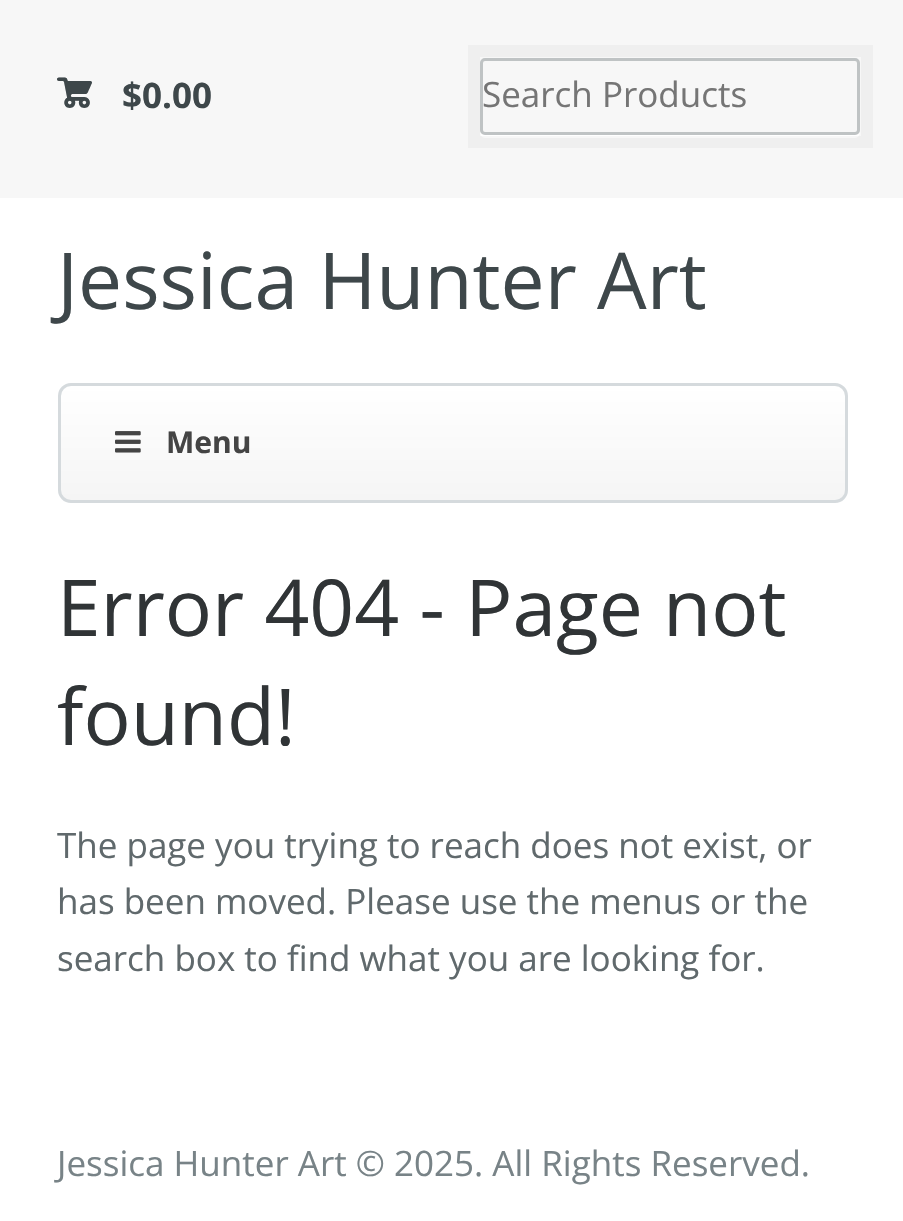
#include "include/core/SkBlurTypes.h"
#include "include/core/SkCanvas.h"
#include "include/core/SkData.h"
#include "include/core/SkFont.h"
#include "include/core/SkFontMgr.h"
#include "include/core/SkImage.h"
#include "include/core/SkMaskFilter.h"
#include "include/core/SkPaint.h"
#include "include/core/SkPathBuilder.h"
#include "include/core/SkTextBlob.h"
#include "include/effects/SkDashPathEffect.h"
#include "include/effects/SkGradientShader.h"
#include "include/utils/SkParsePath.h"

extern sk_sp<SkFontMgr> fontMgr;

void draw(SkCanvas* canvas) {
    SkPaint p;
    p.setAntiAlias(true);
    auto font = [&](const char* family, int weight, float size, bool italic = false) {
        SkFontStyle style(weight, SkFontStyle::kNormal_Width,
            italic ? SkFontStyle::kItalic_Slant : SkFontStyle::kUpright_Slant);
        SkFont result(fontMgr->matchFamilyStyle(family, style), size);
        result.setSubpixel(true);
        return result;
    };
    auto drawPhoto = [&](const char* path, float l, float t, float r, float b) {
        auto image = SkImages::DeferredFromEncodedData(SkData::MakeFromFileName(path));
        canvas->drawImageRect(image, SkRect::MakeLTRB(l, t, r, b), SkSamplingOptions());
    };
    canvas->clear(0xFFFFFFFF);
    p.setColor(0xFFF7F7F7);
    canvas->drawRect(SkRect::MakeLTRB(0, 0, 903, 198), p);
    auto font1 = font("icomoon", 400, 35);
    p.setColor(0xFF3E474A);
    canvas->drawString("£", 57, 108, font1, p);
    auto font2 = font("Open Sans", 700, 35);
    canvas->drawString("$0.00", 122, 108, font2, p);
    p.setColor(0xFFFFFFFF);
    canvas->drawPath(SkPathBuilder().moveTo(480, 131).cubicTo(480, 134, 481, 138, 485, 138).lineTo(855, 138).cubicTo(859, 138, 860, 134, 860, 131).cubicTo(860, 133, 858, 135, 856, 135).lineTo(484, 135).cubicTo(482, 135, 480, 133, 480, 131).close().detach(), p);
    p.setStyle(SkPaint::kStroke_Style);
    p.setStrokeWidth(12);
    p.setColor(0x08000000);
    canvas->drawRect(SkRect::MakeLTRB(474, 51, 867, 142), p);
    p.setStrokeWidth(3);
    p.setColor(0xFFBFC3C4);
    canvas->drawRoundRect(SkRect::MakeLTRB(481.5f, 59.5f, 858.5f, 133.5f), 3.5f, 3.5f, p);
    auto font3 = font("Open Sans", 400, 35);
    p.setStyle(SkPaint::kFill_Style);
    p.setColor(0xFF757575);
    canvas->drawString("Search Products", 482, 107, font3, p);
    auto font4 = font("Open Sans", 400, 78.5f);
    p.setColor(0xFF3E474A);
    canvas->drawString("Jessica Hunter Art", 57, 309, font4, p);
    {
        const SkColor colors[] = {0xFFFFFFFF, 0xFFF5F5F5};
        const float stops[] = {0, 1};
        const SkPoint ends[] = {{453, 385}, {453, 500}};
        p.setShader(SkGradientShader::MakeLinear(ends, colors, stops, 2, SkTileMode::kClamp));
        p.setAlpha(255);
    }
    canvas->drawRoundRect(SkRect::MakeLTRB(60, 385, 845, 500), 10, 10, p);
    p.setStyle(SkPaint::kStroke_Style);
    p.setShader(nullptr);
    p.setColor(0xFFD5DADD);
    canvas->drawRoundRect(SkRect::MakeLTRB(59.5f, 384.5f, 846.5f, 501.5f), 11.5f, 11.5f, p);
    drawPhoto("media/1.png", 115, 431, 141, 453);
    auto font5 = font("Open Sans", 700, 30);
    p.setStyle(SkPaint::kFill_Style);
    p.setColor(0xFF444444);
    canvas->drawString("Menu", 166, 453, font5, p);
    p.setColor(0xFF303436);
    canvas->drawString("Error 404 - Page not", 57, 636, font4, p);
    canvas->drawString("found!", 57, 745, font4, p);
    p.setColor(0xFF60696C);
    {
        const struct { const char* s; float x, y; } items[] = {
            {"The page you trying to reach does not exist, or", 57, 858},
            {"has been moved. Please use the menus or the", 57, 914},
            {"search box to find what you are looking for.", 57, 971},
        };
        for (auto [s, x, y] : items) {
            canvas->drawString(s, x, y, font3, p);
        }
    }
    p.setColor(0xFF788387);
    canvas->drawString("Jessica Hunter Art © 2025. All Rights Reserved.", 57, 1176, font3, p);
}
